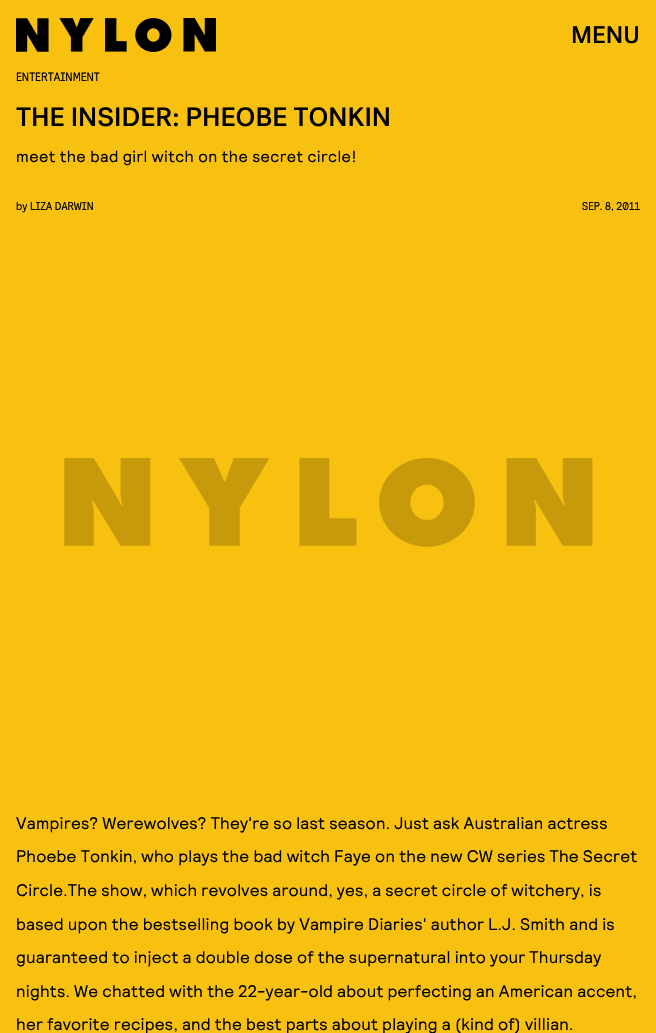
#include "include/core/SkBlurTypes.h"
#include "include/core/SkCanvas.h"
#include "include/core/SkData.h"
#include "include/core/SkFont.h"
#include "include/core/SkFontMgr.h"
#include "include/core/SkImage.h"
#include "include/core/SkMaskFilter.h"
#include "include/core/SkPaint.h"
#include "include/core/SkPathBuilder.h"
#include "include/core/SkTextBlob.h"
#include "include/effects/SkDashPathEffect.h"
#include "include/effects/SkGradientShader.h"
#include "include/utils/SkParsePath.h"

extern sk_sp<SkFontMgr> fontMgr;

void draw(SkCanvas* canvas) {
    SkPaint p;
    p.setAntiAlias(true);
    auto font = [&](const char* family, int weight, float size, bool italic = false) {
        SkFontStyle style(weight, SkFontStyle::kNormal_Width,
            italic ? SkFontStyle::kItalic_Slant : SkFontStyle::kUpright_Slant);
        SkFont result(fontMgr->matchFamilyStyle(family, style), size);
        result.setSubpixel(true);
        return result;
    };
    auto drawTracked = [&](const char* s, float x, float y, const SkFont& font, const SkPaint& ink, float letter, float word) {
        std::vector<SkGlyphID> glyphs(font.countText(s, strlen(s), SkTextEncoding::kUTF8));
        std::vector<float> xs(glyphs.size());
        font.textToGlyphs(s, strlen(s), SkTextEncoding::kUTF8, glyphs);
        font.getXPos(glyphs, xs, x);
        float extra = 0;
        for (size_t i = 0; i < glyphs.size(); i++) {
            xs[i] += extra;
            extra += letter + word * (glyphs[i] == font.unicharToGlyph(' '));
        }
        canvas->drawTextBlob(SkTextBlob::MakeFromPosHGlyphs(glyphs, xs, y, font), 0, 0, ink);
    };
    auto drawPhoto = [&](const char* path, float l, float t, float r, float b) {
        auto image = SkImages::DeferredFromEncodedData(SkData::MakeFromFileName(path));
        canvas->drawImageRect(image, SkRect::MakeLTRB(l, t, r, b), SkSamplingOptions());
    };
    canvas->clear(0xFFF9C10F);
    drawPhoto("media/1.png", 16, 18, 216, 52);
    auto font1 = font("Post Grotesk", 500, 24);
    p.setColor(0xFF000000);
    canvas->drawString("MENU", 571, 43, font1, p);
    auto font2 = font("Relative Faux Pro", 400, 12);
    canvas->drawString("ENTERTAINMENT", 16, 81, font2, p);
    auto font3 = font("Post Grotesk", 500, 26.4f);
    canvas->drawString("THE INSIDER: PHEOBE TONKIN", 16, 126, font3, p);
    auto font4 = font("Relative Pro", 400, 16);
    drawTracked("meet the bad girl witch on the secret circle!", 16, 162, font4, p, 0.4f, 0);
    auto font5 = font("Relative Faux Pro", 400, 11.25f);
    canvas->drawString("by LIZA DARWIN", 16, 210, font5, p);
    canvas->drawString("SEP. 8, 2011", 582, 210, font5, p);
    drawPhoto("media/2.png", 64, 458, 593, 547);
    auto font6 = font("Relative Pro", 400, 16.8f);
    {
        const struct { const char* s; float x, y; } items[] = {
            {"Vampires? Werewolves? They're so last season. Just ask Australian actress", 16, 829},
            {"Phoebe Tonkin, who plays the bad witch Faye on the new CW series The Secret", 16, 862},
            {"Circle.The show, which revolves around, yes, a secret circle of witchery, is", 16, 896},
            {"based upon the bestselling book by Vampire Diaries' author L.J. Smith and is", 16, 930},
            {"guaranteed to inject a double dose of the supernatural into your Thursday", 16, 963},
            {"nights. We chatted with the 22-year-old about perfecting an American accent,", 16, 997},
            {"her favorite recipes, and the best parts about playing a (kind of) villian.", 16, 1030},
        };
        for (auto [s, x, y] : items) {
            drawTracked(s, x, y, font6, p, 0.2f, 0);
        }
    }
}
